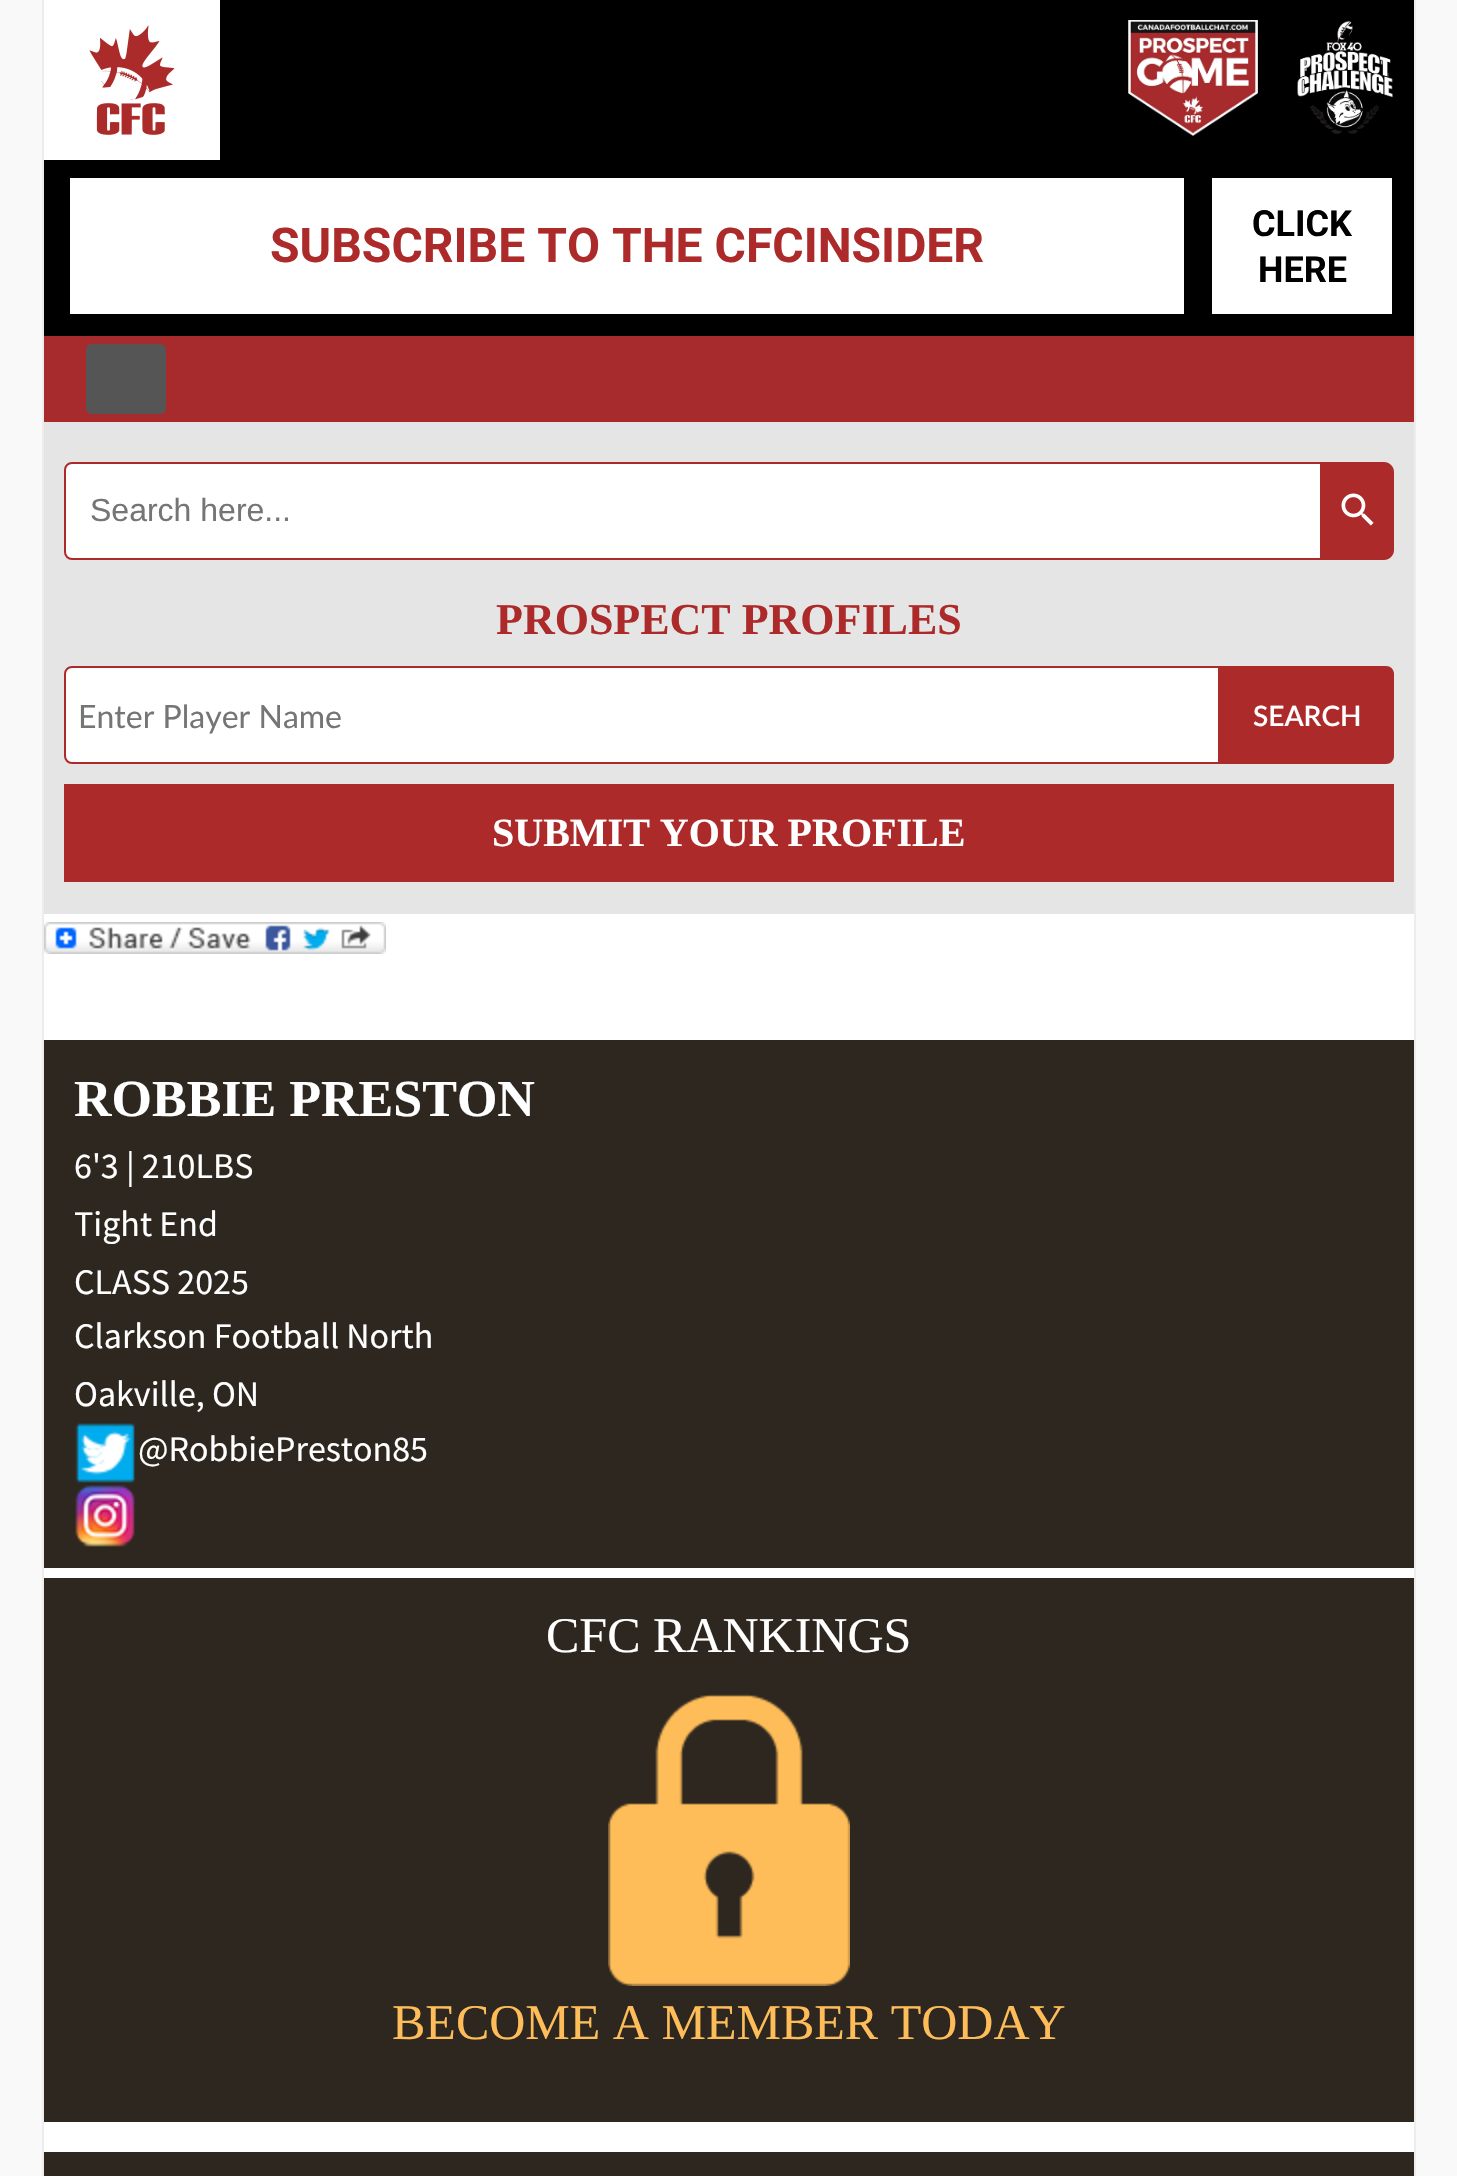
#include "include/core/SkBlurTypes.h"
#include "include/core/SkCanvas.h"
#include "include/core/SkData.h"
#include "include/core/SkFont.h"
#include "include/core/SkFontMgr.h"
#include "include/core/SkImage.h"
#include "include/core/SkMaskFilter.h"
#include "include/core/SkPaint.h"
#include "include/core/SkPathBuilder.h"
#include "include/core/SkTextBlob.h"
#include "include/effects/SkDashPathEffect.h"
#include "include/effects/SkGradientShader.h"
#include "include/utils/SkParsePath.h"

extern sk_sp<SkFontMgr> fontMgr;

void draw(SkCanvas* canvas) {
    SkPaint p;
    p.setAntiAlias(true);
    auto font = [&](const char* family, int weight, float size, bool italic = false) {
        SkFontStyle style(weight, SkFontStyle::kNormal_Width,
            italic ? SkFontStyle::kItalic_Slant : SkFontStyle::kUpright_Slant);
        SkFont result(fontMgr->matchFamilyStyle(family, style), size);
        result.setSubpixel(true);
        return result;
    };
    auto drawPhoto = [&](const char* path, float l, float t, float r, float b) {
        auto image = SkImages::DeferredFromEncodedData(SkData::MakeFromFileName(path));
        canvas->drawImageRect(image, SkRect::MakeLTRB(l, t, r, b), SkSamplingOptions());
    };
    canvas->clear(0xFFF9F9F9);
    {
        const struct { float l, t, r, b; SkColor color; } items[] = {
            {44, 914, 1414, 2152, 0xFFFFFFFF},
            {1414, 0, 1416, 2176, 0xFFEEECEC},
            {42, 0, 44, 2176, 0xFFEEECEC},
            {44, 0, 1414, 336, 0xFF000000},
            {44, 0, 220, 160, 0xFFFFFFFF},
        };
        for (auto [l, t, r, b, color] : items) {
            p.setColor(color);
            canvas->drawRect(SkRect::MakeLTRB(l, t, r, b), p);
        }
    }
    drawPhoto("media/1.png", 89, 25, 175, 135);
    drawPhoto("media/2.png", 1128, 20, 1258, 136);
    drawPhoto("media/3.png", 1297, 20, 1393, 134);
    canvas->drawRect(SkRect::MakeLTRB(70, 178, 1184, 314), p);
    auto font1 = font("Roboto", 700, 48);
    p.setColor(0xFFAC2A29);
    canvas->drawString("SUBSCRIBE TO THE CFCINSIDER", 270, 262, font1, p);
    p.setColor(0xFFFFFFFF);
    canvas->drawRect(SkRect::MakeLTRB(1212, 178, 1392, 314), p);
    auto font2 = font("Roboto", 700, 36);
    p.setColor(0xFF000000);
    canvas->drawString("CLICK", 1252, 236, font2, p);
    canvas->drawString("HERE", 1258, 282, font2, p);
    p.setColor(0xFFA72B2C);
    canvas->drawRect(SkRect::MakeLTRB(44, 336, 1414, 422), p);
    p.setColor(0xFF555555);
    canvas->drawRoundRect(SkRect::MakeLTRB(86, 344, 166, 414), 6, 6, p);
    p.setColor(0xFFE5E5E5);
    canvas->drawRect(SkRect::MakeLTRB(44, 422, 1414, 914), p);
    p.setColor(0xFFFFFFFF);
    canvas->drawPath(SkPathBuilder().moveTo(72, 463).lineTo(1321, 463).lineTo(1321, 559).lineTo(72, 559).cubicTo(68, 559, 65, 556, 65, 552).lineTo(65, 470).cubicTo(65, 466, 68, 463, 72, 463).close().detach(), p);
    p.setStyle(SkPaint::kStroke_Style);
    p.setStrokeWidth(2);
    p.setColor(0xFFAC2A29);
    canvas->drawPath(SkPathBuilder().moveTo(72, 463).lineTo(1321, 463).lineTo(1321, 559).lineTo(72, 559).cubicTo(68, 559, 65, 556, 65, 552).lineTo(65, 470).cubicTo(65, 466, 68, 463, 72, 463).close().detach(), p);
    auto font3 = font("Liberation Sans", 400, 32);
    p.setStyle(SkPaint::kFill_Style);
    p.setColor(0xFF757575);
    canvas->drawString("Search here...", 90, 521, font3, p);
    p.setColor(0xFFAC2A29);
    canvas->drawPath(SkPathBuilder().moveTo(1322, 462).lineTo(1384, 462).cubicTo(1389.5f, 462, 1394, 466.5f, 1394, 472).lineTo(1394, 550).cubicTo(1394, 555.5f, 1389.5f, 560, 1384, 560).lineTo(1322, 560).close().detach(), p);
    drawPhoto("media/4.png", 1341, 493, 1374, 526);
    auto font4 = font("Liberation Serif", 700, 44);
    canvas->drawString("PROSPECT PROFILES", 496, 634, font4, p);
    p.setColor(0xFFFFFFFF);
    canvas->drawPath(SkPathBuilder().moveTo(72, 667).lineTo(1219, 667).lineTo(1219, 763).lineTo(72, 763).cubicTo(68, 763, 65, 760, 65, 756).lineTo(65, 674).cubicTo(65, 670, 68, 667, 72, 667).close().detach(), p);
    p.setStyle(SkPaint::kStroke_Style);
    p.setColor(0xFFAC2A29);
    canvas->drawPath(SkPathBuilder().moveTo(72, 667).lineTo(1219, 667).lineTo(1219, 763).lineTo(72, 763).cubicTo(68, 763, 65, 760, 65, 756).lineTo(65, 674).cubicTo(65, 670, 68, 667, 72, 667).close().detach(), p);
    auto font5 = font("Lato", 400, 32);
    p.setStyle(SkPaint::kFill_Style);
    p.setColor(0xFF757575);
    canvas->drawString("Enter Player Name", 78, 728, font5, p);
    p.setColor(0xFFAC2A29);
    canvas->drawPath(SkPathBuilder().moveTo(1220, 666).lineTo(1386, 666).cubicTo(1390.5f, 666, 1394, 669.5f, 1394, 674).lineTo(1394, 756).cubicTo(1394, 760.5f, 1390.5f, 764, 1386, 764).lineTo(1220, 764).close().detach(), p);
    auto font6 = font("Lato", 600, 28);
    p.setColor(0xFFFFFFFF);
    canvas->drawString("SEARCH", 1253, 726, font6, p);
    p.setColor(0xFFAC2A29);
    canvas->drawRect(SkRect::MakeLTRB(64, 784, 1394, 882), p);
    auto font7 = font("Liberation Serif", 700, 40);
    p.setColor(0xFFFFFFFF);
    canvas->drawString("SUBMIT YOUR PROFILE", 492, 846, font7, p);
    drawPhoto("media/5.png", 44, 922, 386, 954);
    p.setColor(0xFF2D271F);
    canvas->drawRect(SkRect::MakeLTRB(44, 1040, 1414, 1568), p);
    auto font8 = font("Liberation Serif", 700, 52);
    p.setColor(0xFFFFFFFF);
    canvas->drawString("ROBBIE PRESTON", 74, 1116, font8, p);
    auto font9 = font("Source Sans Pro", 400, 36);
    {
        const struct { const char* s; float x, y; } items[] = {
            {"6'3 | 210LBS", 74, 1178},
            {"Tight End", 74, 1236},
            {"CLASS 2025", 74, 1294},
            {"Clarkson Football North", 74, 1348},
            {"Oakville, ON", 74, 1406},
        };
        for (auto [s, x, y] : items) {
            canvas->drawString(s, x, y, font9, p);
        }
    }
    drawPhoto("media/6.png", 75, 1423, 135, 1483);
    canvas->drawString("@RobbiePreston85", 138, 1461, font9, p);
    drawPhoto("media/7.png", 75, 1485, 135, 1547);
    p.setColor(0xFF2D271F);
    canvas->drawRect(SkRect::MakeLTRB(44, 1578, 1414, 2122), p);
    auto font10 = font("Liberation Serif", 400, 50);
    p.setColor(0xFFFFFFFF);
    canvas->drawString("CFC RANKINGS", 546, 1652, font10, p);
    drawPhoto("media/8.png", 608, 1694, 850, 1986);
    p.setColor(0xFFFFBD59);
    canvas->drawString("BECOME A MEMBER TODAY", 392, 2039, font10, p);
    p.setColor(0xFF2D271F);
    canvas->drawRect(SkRect::MakeLTRB(44, 2152, 1414, 2176), p);
}
